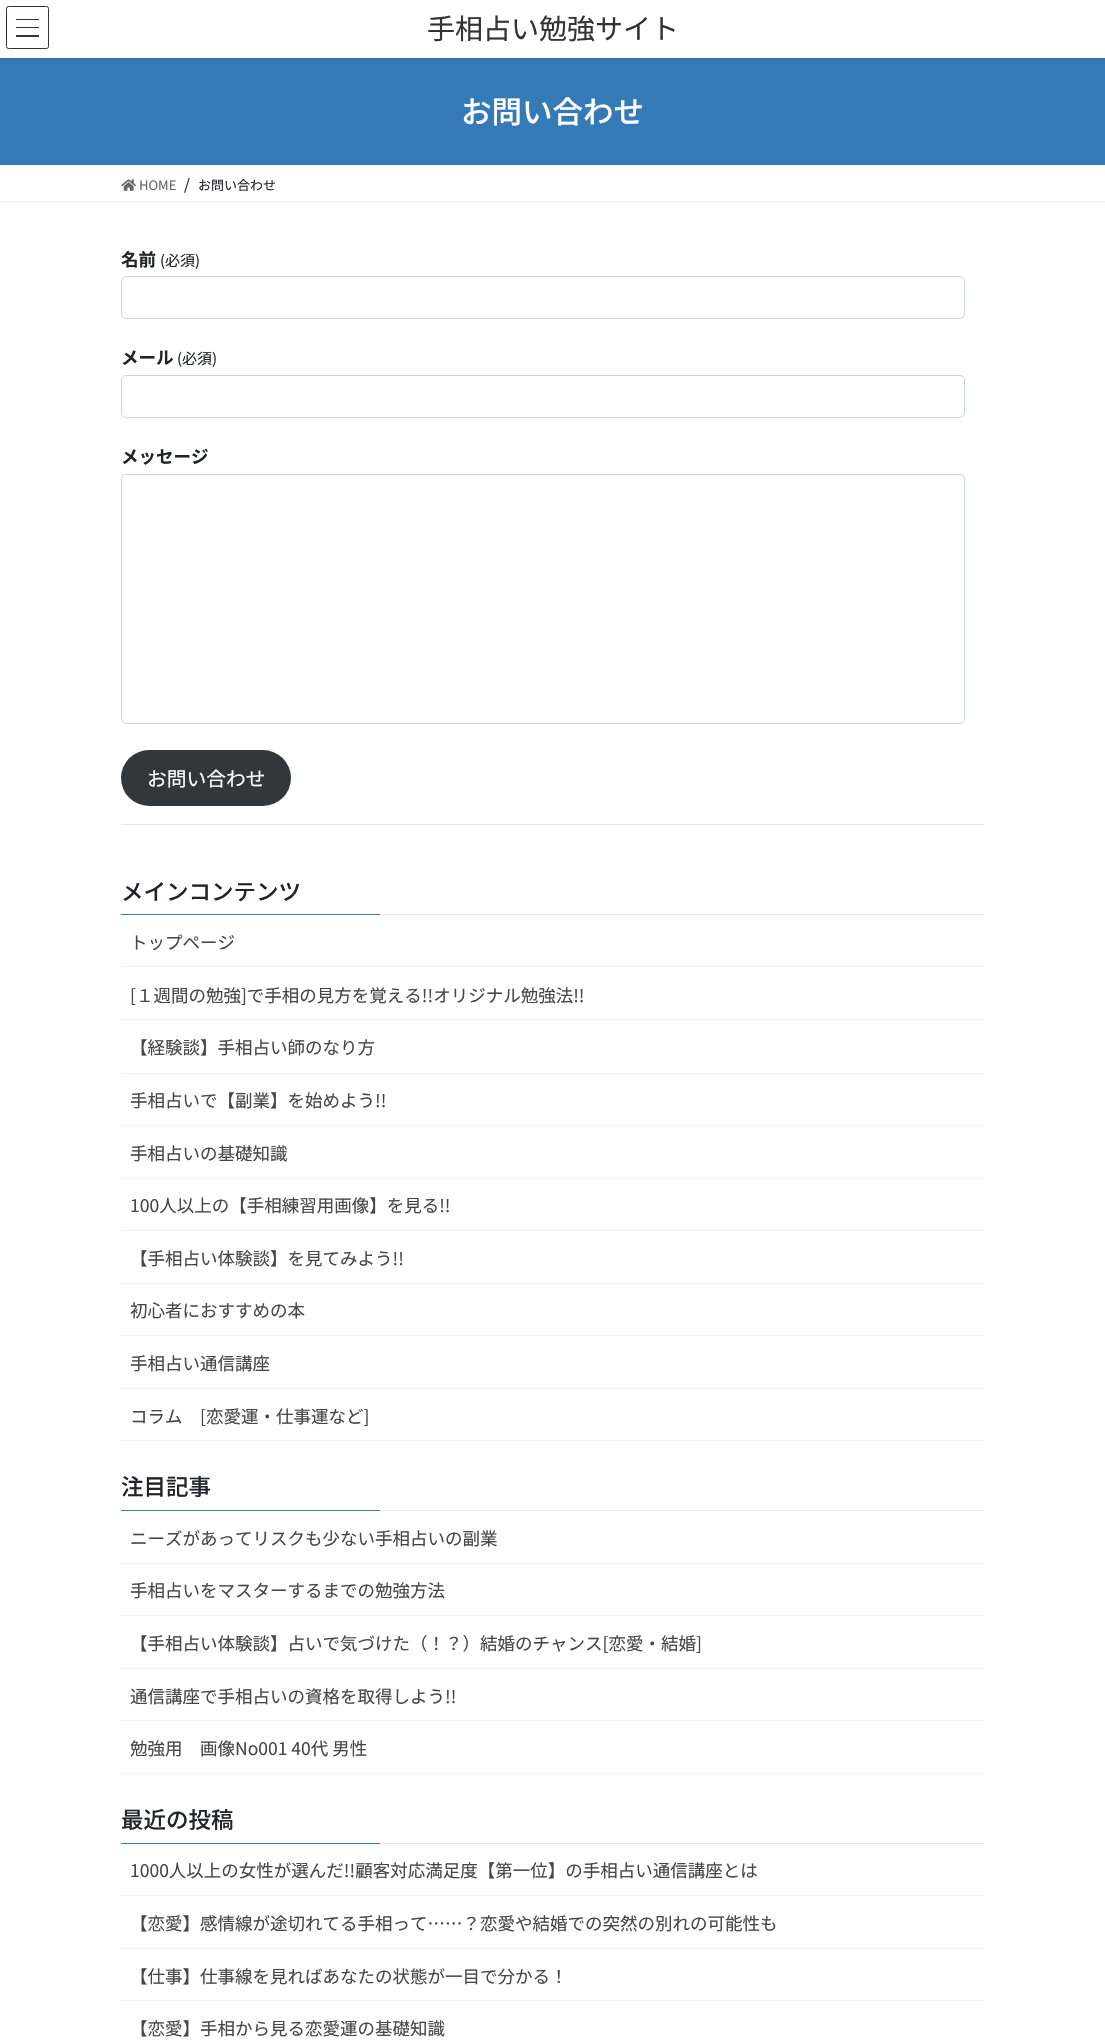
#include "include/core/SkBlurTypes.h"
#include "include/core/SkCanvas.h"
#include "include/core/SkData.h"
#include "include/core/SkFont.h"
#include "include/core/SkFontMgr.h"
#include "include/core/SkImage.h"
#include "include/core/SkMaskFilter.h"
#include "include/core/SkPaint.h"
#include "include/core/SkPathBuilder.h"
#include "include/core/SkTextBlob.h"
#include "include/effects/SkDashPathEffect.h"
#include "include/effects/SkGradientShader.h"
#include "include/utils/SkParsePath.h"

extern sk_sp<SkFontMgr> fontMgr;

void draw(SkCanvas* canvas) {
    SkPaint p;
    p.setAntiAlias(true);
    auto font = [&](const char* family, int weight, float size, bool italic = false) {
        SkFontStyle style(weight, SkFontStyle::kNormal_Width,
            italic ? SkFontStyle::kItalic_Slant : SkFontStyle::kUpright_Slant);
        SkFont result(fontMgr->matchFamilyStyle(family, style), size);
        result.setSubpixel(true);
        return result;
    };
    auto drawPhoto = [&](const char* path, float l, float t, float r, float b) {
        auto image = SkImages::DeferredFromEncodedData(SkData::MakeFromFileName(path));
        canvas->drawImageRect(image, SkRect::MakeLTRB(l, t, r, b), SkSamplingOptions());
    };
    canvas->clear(0xFFFFFFFF);
    p.setColor(0xFF337AB7);
    canvas->drawRect(SkRect::MakeLTRB(0, 58, 1105, 165), p);
    p.setColor(0x1A000000);
    p.setMaskFilter(SkMaskFilter::MakeBlur(kNormal_SkBlurStyle, 2));
    canvas->drawRect(SkRect::MakeLTRB(0, 1, 1105, 59), p);
    p.setMaskFilter(nullptr);
    {
        const struct { float l, t, r, b; SkColor color; } items[] = {
            {0, 0, 1105, 58, 0xFFFFFFFF},
            {16, 19, 39, 20, 0xFF333333},
            {16, 27, 39, 28, 0xFF333333},
            {16, 35, 39, 37, 0xFF333333},
        };
        for (auto [l, t, r, b, color] : items) {
            p.setColor(color);
            canvas->drawRect(SkRect::MakeLTRB(l, t, r, b), p);
        }
    }
    p.setStyle(SkPaint::kStroke_Style);
    p.setStrokeWidth(1);
    canvas->drawRoundRect(SkRect::MakeLTRB(6.5f, 6.5f, 48.5f, 48.5f), 2, 2, p);
    auto font1 = font("Noto Sans JP", 400, 28);
    p.setStyle(SkPaint::kFill_Style);
    canvas->drawString("手相占い勉強サイト", 427, 39, font1, p);
    auto font2 = font("Noto Sans JP", 500, 30.5f);
    p.setColor(0xFFFFFFFF);
    canvas->drawString("お問い合わせ", 461, 123, font2, p);
    p.setColor(0xFFF2F2F2);
    canvas->drawRect(SkRect::MakeLTRB(0, 201, 1105, 202), p);
    drawPhoto("media/1.png", 121, 179, 136, 191);
    auto font3 = font("Noto Sans JP", 400, 13);
    p.setColor(0xFF666666);
    canvas->drawString("HOME", 139, 190, font3, p);
    auto font4 = font("Noto Sans JP", 400, 15);
    p.setColor(0xFF212529);
    canvas->drawString("/", 184, 190, font4, p);
    canvas->drawString("お問い合わせ", 198, 190, font3, p);
    auto font5 = font("Noto Sans JP", 700, 17.5f);
    canvas->drawString("名前", 121, 266, font5, p);
    canvas->drawString("(必須)", 160, 266, font4, p);
    p.setStyle(SkPaint::kStroke_Style);
    p.setColor(0xFFCED4DA);
    canvas->drawRoundRect(SkRect::MakeLTRB(121.5f, 276.5f, 964.5f, 318.5f), 4.5f, 4.5f, p);
    p.setStyle(SkPaint::kFill_Style);
    p.setColor(0xFF212529);
    canvas->drawString("メール", 121, 364, font5, p);
    canvas->drawString("(必須)", 177, 364, font4, p);
    p.setStyle(SkPaint::kStroke_Style);
    p.setColor(0xFFCED4DA);
    canvas->drawRoundRect(SkRect::MakeLTRB(121.5f, 375.5f, 964.5f, 417.5f), 4.5f, 4.5f, p);
    p.setStyle(SkPaint::kFill_Style);
    p.setColor(0xFF212529);
    canvas->drawString("メッセージ", 121, 463, font5, p);
    p.setStyle(SkPaint::kStroke_Style);
    p.setColor(0xFFCED4DA);
    canvas->drawRoundRect(SkRect::MakeLTRB(121.5f, 474.5f, 964.5f, 723.5f), 4.5f, 4.5f, p);
    p.setStyle(SkPaint::kFill_Style);
    p.setColor(0xFF32373C);
    canvas->drawRoundRect(SkRect::MakeLTRB(121, 750, 291, 806), 28, 28, p);
    auto font6 = font("Noto Sans JP", 400, 19.75f);
    p.setColor(0xFFFFFFFF);
    canvas->drawString("お問い合わせ", 147, 786, font6, p);
    p.setColor(0xFFE6E6E6);
    canvas->drawRect(SkRect::MakeLTRB(121, 824, 984, 825), p);
    canvas->drawRect(SkRect::MakeLTRB(380, 914, 984, 915), p);
    auto font7 = font("Noto Sans JP", 500, 22.5f);
    p.setColor(0xFF212529);
    canvas->drawString("メインコンテンツ", 121, 900, font7, p);
    p.setColor(0xFF337AB7);
    canvas->drawRect(SkRect::MakeLTRB(121, 914, 380, 915), p);
    p.setColor(0xFFF2F2F2);
    canvas->drawRect(SkRect::MakeLTRB(121, 966, 984, 967), p);
    auto font8 = font("Noto Sans JP", 400, 17.5f);
    p.setColor(0xFF464646);
    canvas->drawString("トップページ", 130, 949, font8, p);
    p.setColor(0xFFF2F2F2);
    canvas->drawRect(SkRect::MakeLTRB(121, 1019, 984, 1020), p);
    p.setColor(0xFF464646);
    canvas->drawString("[１週間の勉強]で手相の見方を覚える!!オリジナル勉強法!!", 130, 1002, font8, p);
    p.setColor(0xFFF2F2F2);
    canvas->drawRect(SkRect::MakeLTRB(121, 1073, 984, 1074), p);
    p.setColor(0xFF464646);
    canvas->drawString("【経験談】手相占い師のなり方", 130, 1054, font8, p);
    p.setColor(0xFFF2F2F2);
    canvas->drawRect(SkRect::MakeLTRB(121, 1125, 984, 1126), p);
    p.setColor(0xFF464646);
    canvas->drawString("手相占いで【副業】を始めよう!!", 130, 1107, font8, p);
    p.setColor(0xFFF2F2F2);
    canvas->drawRect(SkRect::MakeLTRB(121, 1178, 984, 1179), p);
    p.setColor(0xFF464646);
    canvas->drawString("手相占いの基礎知識", 130, 1160, font8, p);
    p.setColor(0xFFF2F2F2);
    canvas->drawRect(SkRect::MakeLTRB(121, 1230, 984, 1231), p);
    p.setColor(0xFF464646);
    canvas->drawString("100人以上の【手相練習用画像】を見る!!", 130, 1212, font8, p);
    p.setColor(0xFFF2F2F2);
    canvas->drawRect(SkRect::MakeLTRB(121, 1283, 984, 1284), p);
    p.setColor(0xFF464646);
    canvas->drawString("【手相占い体験談】を見てみよう!!", 130, 1265, font8, p);
    p.setColor(0xFFF2F2F2);
    canvas->drawRect(SkRect::MakeLTRB(121, 1335, 984, 1336), p);
    p.setColor(0xFF464646);
    canvas->drawString("初心者におすすめの本", 130, 1317, font8, p);
    p.setColor(0xFFF2F2F2);
    canvas->drawRect(SkRect::MakeLTRB(121, 1388, 984, 1389), p);
    p.setColor(0xFF464646);
    canvas->drawString("手相占い通信講座", 130, 1370, font8, p);
    p.setColor(0xFFF2F2F2);
    canvas->drawRect(SkRect::MakeLTRB(121, 1440, 984, 1441), p);
    p.setColor(0xFF464646);
    canvas->drawString("コラム　[恋愛運・仕事運など]", 130, 1423, font8, p);
    p.setColor(0xFFE6E6E6);
    canvas->drawRect(SkRect::MakeLTRB(380, 1510, 984, 1511), p);
    p.setColor(0xFF212529);
    canvas->drawString("注目記事", 121, 1495, font7, p);
    p.setColor(0xFF337AB7);
    canvas->drawRect(SkRect::MakeLTRB(121, 1510, 380, 1511), p);
    p.setColor(0xFFF2F2F2);
    canvas->drawRect(SkRect::MakeLTRB(121, 1563, 984, 1564), p);
    p.setColor(0xFF464646);
    canvas->drawString("ニーズがあってリスクも少ない手相占いの副業", 130, 1545, font8, p);
    p.setColor(0xFFF2F2F2);
    canvas->drawRect(SkRect::MakeLTRB(121, 1615, 984, 1616), p);
    p.setColor(0xFF464646);
    canvas->drawString("手相占いをマスターするまでの勉強方法", 130, 1597, font8, p);
    p.setColor(0xFFF2F2F2);
    canvas->drawRect(SkRect::MakeLTRB(121, 1668, 984, 1669), p);
    p.setColor(0xFF464646);
    canvas->drawString("【手相占い体験談】占いで気づけた（！？）結婚のチャンス[恋愛・結婚]", 130, 1650, font8, p);
    p.setColor(0xFFF2F2F2);
    canvas->drawRect(SkRect::MakeLTRB(121, 1720, 984, 1721), p);
    p.setColor(0xFF464646);
    canvas->drawString("通信講座で手相占いの資格を取得しよう!!", 130, 1703, font8, p);
    p.setColor(0xFFF2F2F2);
    canvas->drawRect(SkRect::MakeLTRB(121, 1773, 984, 1774), p);
    p.setColor(0xFF464646);
    canvas->drawString("勉強用　画像No001 40代 男性", 130, 1755, font8, p);
    p.setColor(0xFFE6E6E6);
    canvas->drawRect(SkRect::MakeLTRB(380, 1843, 984, 1844), p);
    p.setColor(0xFF212529);
    canvas->drawString("最近の投稿", 121, 1828, font7, p);
    p.setColor(0xFF337AB7);
    canvas->drawRect(SkRect::MakeLTRB(121, 1843, 380, 1844), p);
    p.setColor(0xFFF2F2F2);
    canvas->drawRect(SkRect::MakeLTRB(121, 1895, 984, 1896), p);
    p.setColor(0xFF464646);
    canvas->drawString("1000人以上の女性が選んだ!!顧客対応満足度【第一位】の手相占い通信講座とは", 130, 1877, font8, p);
    p.setColor(0xFFF2F2F2);
    canvas->drawRect(SkRect::MakeLTRB(121, 1948, 984, 1949), p);
    p.setColor(0xFF464646);
    canvas->drawString("【恋愛】感情線が途切れてる手相って……？恋愛や結婚での突然の別れの可能性も", 130, 1930, font8, p);
    p.setColor(0xFFF2F2F2);
    canvas->drawRect(SkRect::MakeLTRB(121, 2000, 984, 2001), p);
    p.setColor(0xFF464646);
    canvas->drawString("【仕事】仕事線を見ればあなたの状態が一目で分かる！", 130, 1983, font8, p);
    canvas->drawString("【恋愛】手相から見る恋愛運の基礎知識", 130, 2035, font8, p);
}
